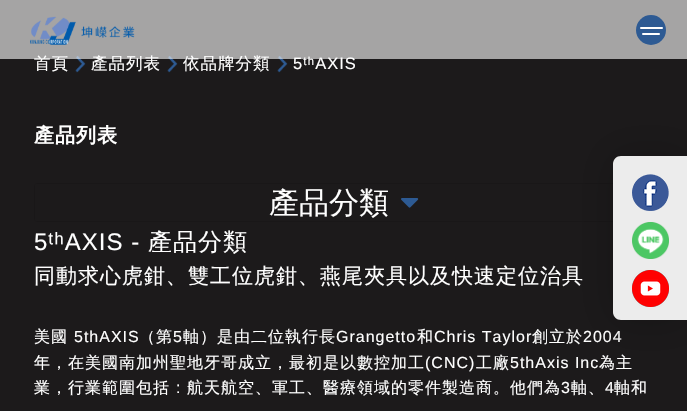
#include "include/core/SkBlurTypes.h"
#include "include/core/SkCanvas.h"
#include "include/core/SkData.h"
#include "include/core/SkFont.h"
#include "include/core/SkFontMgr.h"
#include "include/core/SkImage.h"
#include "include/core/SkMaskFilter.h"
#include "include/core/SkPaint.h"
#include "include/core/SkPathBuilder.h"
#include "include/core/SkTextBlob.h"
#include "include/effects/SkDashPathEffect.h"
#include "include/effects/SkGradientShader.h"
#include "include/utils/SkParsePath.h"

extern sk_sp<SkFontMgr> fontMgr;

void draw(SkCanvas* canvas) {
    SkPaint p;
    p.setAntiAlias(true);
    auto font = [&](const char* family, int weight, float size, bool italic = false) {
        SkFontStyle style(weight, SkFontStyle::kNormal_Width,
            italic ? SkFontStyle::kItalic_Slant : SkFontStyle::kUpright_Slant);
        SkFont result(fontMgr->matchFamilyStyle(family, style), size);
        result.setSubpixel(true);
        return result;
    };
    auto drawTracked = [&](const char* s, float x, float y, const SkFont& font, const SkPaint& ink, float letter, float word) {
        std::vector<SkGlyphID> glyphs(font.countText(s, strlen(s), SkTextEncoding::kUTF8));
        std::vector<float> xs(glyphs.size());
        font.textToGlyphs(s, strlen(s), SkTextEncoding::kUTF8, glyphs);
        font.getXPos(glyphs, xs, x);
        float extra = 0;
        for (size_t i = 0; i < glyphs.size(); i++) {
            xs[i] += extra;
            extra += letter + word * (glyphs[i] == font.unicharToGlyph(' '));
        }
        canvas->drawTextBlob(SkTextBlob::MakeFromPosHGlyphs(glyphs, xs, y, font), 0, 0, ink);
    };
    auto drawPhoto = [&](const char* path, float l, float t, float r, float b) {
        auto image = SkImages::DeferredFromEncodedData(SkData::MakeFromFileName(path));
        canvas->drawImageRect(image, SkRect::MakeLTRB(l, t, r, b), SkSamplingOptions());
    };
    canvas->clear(0xFF1C1A1B);
    auto font1 = font("WenQuanYi Zen Hei", 500, 16.5f);
    p.setColor(0xFFFFFFFF);
    drawTracked("首頁", 34, 69, font1, p, 1, 0);
    drawPhoto("media/2.png", 75, 55, 86, 73);
    drawTracked("產品列表", 91, 69, font1, p, 1, 0);
    drawPhoto("media/2.png", 167, 55, 178, 73);
    drawTracked("依品牌分類", 183, 69, font1, p, 1, 0);
    drawPhoto("media/2.png", 277, 55, 288, 73);
    auto font2 = font("Liberation Sans", 400, 16.5f);
    drawTracked("5ᵗʰAXIS", 293, 69, font2, p, 1, 0);
    p.setColor(0x99FFFFFF);
    canvas->drawRect(SkRect::MakeLTRB(0, 0, 687, 59), p);
    drawPhoto("media/1.png", 30, 16, 135, 45);
    p.setColor(0xFF2D5A93);
    canvas->drawCircle(651, 30, 15, p);
    p.setColor(0xFFFFFFFF);
    canvas->drawRoundRect(SkRect::MakeLTRB(640, 27, 663, 29), 1, 1, p);
    canvas->drawRoundRect(SkRect::MakeLTRB(642, 33, 660, 35), 1, 1, p);
    auto font3 = font("WenQuanYi Zen Hei", 700, 20);
    drawTracked("產品列表", 34, 142, font3, p, 1, 0);
    p.setStyle(SkPaint::kStroke_Style);
    p.setStrokeWidth(1);
    p.setColor(0xFF191718);
    canvas->drawRoundRect(SkRect::MakeLTRB(34.5f, 183.5f, 652.5f, 221.5f), 2.5f, 2.5f, p);
    auto font4 = font("WenQuanYi Zen Hei", 500, 30);
    p.setStyle(SkPaint::kFill_Style);
    p.setColor(0xFFFFFFFF);
    canvas->drawString("產品分類", 269, 213, font4, p);
    drawPhoto("media/3.png", 401, 198, 419, 208);
    auto font5 = font("Liberation Sans", 400, 24);
    drawTracked("5ᵗʰAXIS -", 34, 250, font5, p, 1, 0);
    auto font6 = font("WenQuanYi Zen Hei", 500, 24);
    drawTracked("產品分類", 148, 250, font6, p, 1, 0);
    auto font7 = font("WenQuanYi Zen Hei", 500, 21);
    drawTracked("同動求心虎鉗、雙工位虎鉗、燕尾夾具以及快速定位治具", 34, 283, font7, p, 1, 0);
    auto font8 = font("WenQuanYi Zen Hei", 500, 16);
    drawTracked("美國", 34, 342, font8, p, 1, 0);
    auto font9 = font("Liberation Sans", 400, 16);
    drawTracked("5thAXIS", 74, 342, font9, p, 1, 0);
    drawTracked("（第", 139, 342, font8, p, 1, 0);
    drawTracked("5", 173, 342, font9, p, 1, 0);
    drawTracked("軸）是由二位執行長", 183, 342, font8, p, 1, 0);
    drawTracked("Grangetto", 336, 342, font9, p, 1, 0);
    drawTracked("和", 417, 342, font8, p, 1, 0);
    drawTracked("Chris Taylor", 434, 342, font9, p, 1, 0);
    drawTracked("創立於", 532, 342, font8, p, 1, 0);
    drawTracked("2004", 583, 342, font9, p, 1, 0);
    drawTracked("年，在美國南加州聖地牙哥成立，最初是以數控加工", 34, 368, font8, p, 1, 0);
    drawTracked("(CNC)", 425, 368, font9, p, 1, 0);
    drawTracked("工廠", 476, 368, font8, p, 1, 0);
    drawTracked("5thAxis Inc", 510, 368, font9, p, 1, 0);
    drawTracked("為主", 599, 368, font8, p, 1, 0);
    drawTracked("業，行業範圍包括", 34, 393, font8, p, 1, 0);
    drawTracked(":", 176, 393, font9, p, 1, 0);
    drawTracked("航天航空、軍工、醫療領域的零件製造商。他們為", 187, 393, font8, p, 1, 0);
    drawTracked("3", 561, 393, font9, p, 1, 0);
    drawTracked("軸、", 571, 393, font8, p, 1, 0);
    drawTracked("4", 605, 393, font9, p, 1, 0);
    drawTracked("軸和", 614, 393, font8, p, 1, 0);
    p.setColor(0x33000000);
    p.setMaskFilter(SkMaskFilter::MakeBlur(kNormal_SkBlurStyle, 20));
    canvas->drawRoundRect(SkRect::MakeLTRB(609, 152, 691, 324), 12, 12, p);
    p.setMaskFilter(nullptr);
    p.setColor(0xFFECECEC);
    canvas->drawPath(SkPathBuilder().moveTo(621, 156).lineTo(687, 156).lineTo(687, 320).lineTo(621, 320).cubicTo(616.5f, 320, 613, 316.5f, 613, 312).lineTo(613, 164).cubicTo(613, 159.5f, 616.5f, 156, 621, 156).close().detach(), p);
    drawPhoto("media/4.png", 632, 174, 669, 211);
    drawPhoto("media/5.png", 632, 222, 669, 259);
    drawPhoto("media/6.png", 632, 270, 669, 307);
}
